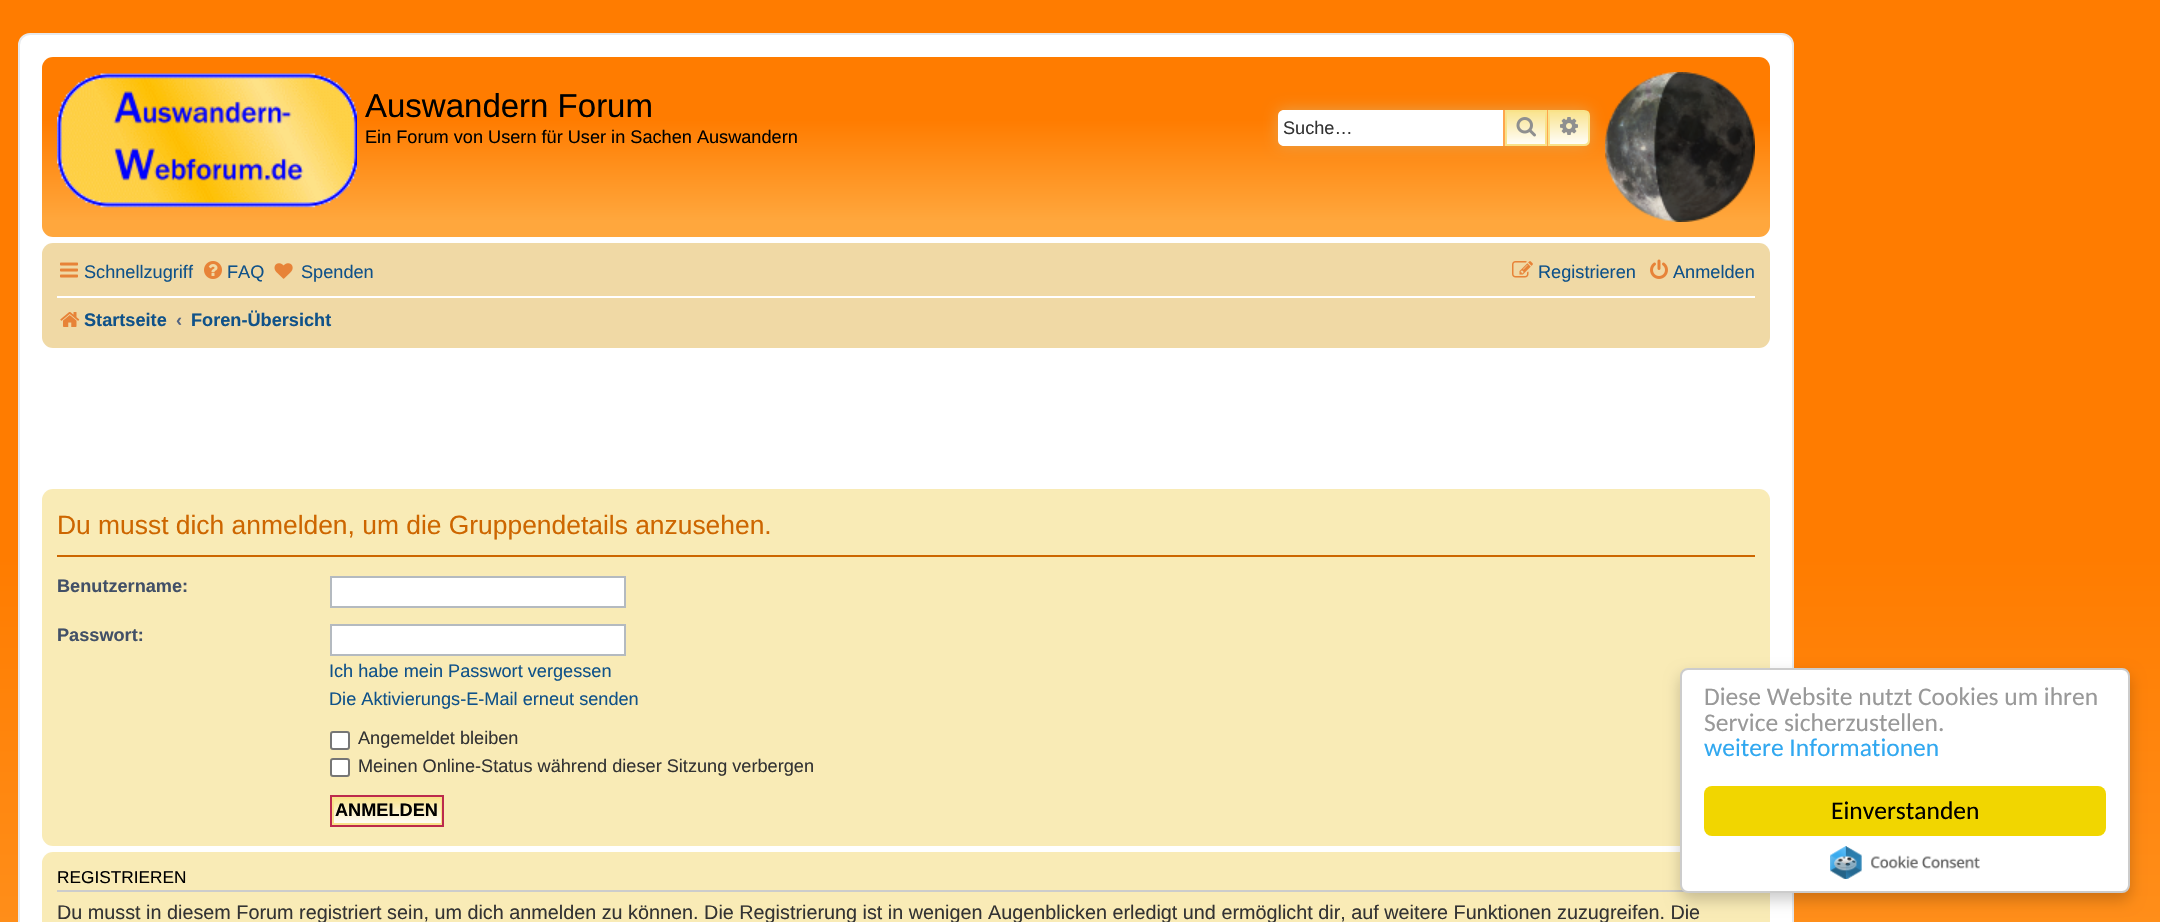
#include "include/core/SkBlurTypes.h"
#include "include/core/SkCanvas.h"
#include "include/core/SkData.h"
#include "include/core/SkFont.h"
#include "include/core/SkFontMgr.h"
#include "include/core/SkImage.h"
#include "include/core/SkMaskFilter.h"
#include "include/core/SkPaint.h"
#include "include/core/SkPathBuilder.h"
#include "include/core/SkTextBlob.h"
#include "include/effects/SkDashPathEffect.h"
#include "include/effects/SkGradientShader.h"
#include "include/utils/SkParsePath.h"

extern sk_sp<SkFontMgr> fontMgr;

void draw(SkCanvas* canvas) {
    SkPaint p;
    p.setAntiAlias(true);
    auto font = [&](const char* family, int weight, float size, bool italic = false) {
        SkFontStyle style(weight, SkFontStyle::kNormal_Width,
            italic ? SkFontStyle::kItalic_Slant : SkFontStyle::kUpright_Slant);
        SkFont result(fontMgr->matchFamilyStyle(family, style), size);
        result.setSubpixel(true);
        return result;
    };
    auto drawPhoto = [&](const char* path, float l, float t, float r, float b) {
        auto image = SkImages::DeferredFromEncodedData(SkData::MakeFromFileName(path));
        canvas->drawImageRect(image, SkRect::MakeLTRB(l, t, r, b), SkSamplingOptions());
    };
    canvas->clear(0xFFFFFFFF);
    {
        const SkColor colors[] = {0xFFFFB76B, 0xFFFF7C00, 0xFFFF7C00, 0xFFFFA73D, 0xFFFFA73D, 0xFFFF7F04, 0xFFFFA73D};
        const float stops[] = {0, 0, 0.35f, 0.91f, 1, 1, 1};
        const SkPoint ends[] = {{1080, 0}, {1080, 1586}};
        p.setShader(SkGradientShader::MakeLinear(ends, colors, stops, 7, SkTileMode::kClamp));
        p.setAlpha(255);
    }
    canvas->drawRect(SkRect::MakeLTRB(0, 0, 2160, 922), p);
    p.setShader(nullptr);
    p.setColor(0xFFFFFFFF);
    canvas->drawRoundRect(SkRect::MakeLTRB(19, 34, 1793, 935), 11, 11, p);
    p.setStyle(SkPaint::kStroke_Style);
    p.setStrokeWidth(2);
    p.setColor(0xFFE6E9ED);
    canvas->drawRoundRect(SkRect::MakeLTRB(19, 34, 1793, 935), 11, 11, p);
    p.setStyle(SkPaint::kFill_Style);
    {
        const SkColor colors[] = {0xFFFFB76B, 0xFFFF7C00, 0xFFFF7C00, 0xFFFFA73D, 0xFFFFA73D, 0xFFFF7F04, 0xFFFFA73D};
        const float stops[] = {0, 0, 0.35f, 0.91f, 1, 1, 1};
        const SkPoint ends[] = {{906, 57}, {906, 237}};
        p.setShader(SkGradientShader::MakeLinear(ends, colors, stops, 7, SkTileMode::kClamp));
        p.setAlpha(255);
    }
    canvas->drawRoundRect(SkRect::MakeLTRB(42, 57, 1770, 237), 11, 11, p);
    drawPhoto("media/1.png", 57, 73, 357, 208);
    auto font1 = font("Liberation Sans", 400, 33);
    p.setShader(nullptr);
    p.setColor(0xFF000000);
    canvas->drawString("Auswandern Forum", 365, 117, font1, p);
    auto font2 = font("Liberation Sans", 400, 18.15f);
    canvas->drawString("Ein Forum von Usern für User in Sachen Auswandern", 365, 143, font2, p);
    drawPhoto("media/4.png", 1605, 72, 1755, 222);
    p.setColor(0xFFE9A24D);
    p.setMaskFilter(SkMaskFilter::MakeBlur(kNormal_SkBlurStyle, 7.5f));
    canvas->drawRoundRect(SkRect::MakeLTRB(1278, 110, 1590, 146), 6, 6, p);
    p.setMaskFilter(nullptr);
    p.setColor(0xFFFFFFFF);
    canvas->drawPath(SkPathBuilder().moveTo(1284, 110).lineTo(1503, 110).lineTo(1503, 146).lineTo(1284, 146).cubicTo(1280.5f, 146, 1278, 143.5f, 1278, 140).lineTo(1278, 116).cubicTo(1278, 112.5f, 1280.5f, 110, 1284, 110).close().detach(), p);
    p.setColor(0xFF333333);
    canvas->drawString("Suche…", 1283, 134, font2, p);
    {
        const SkColor colors[] = {0xFFF9E289, 0xFFFFFFFF};
        const float stops[] = {0, 1};
        const SkPoint ends[] = {{1526, 110}, {1526, 146}};
        p.setShader(SkGradientShader::MakeLinear(ends, colors, stops, 2, SkTileMode::kClamp));
        p.setAlpha(255);
    }
    canvas->drawRect(SkRect::MakeLTRB(1507, 112, 1545, 144), p);
    p.setStyle(SkPaint::kStroke_Style);
    p.setShader(nullptr);
    p.setColor(0xFFF9E289);
    canvas->drawRect(SkRect::MakeLTRB(1506, 111, 1546, 145), p);
    p.setStyle(SkPaint::kFill_Style);
    p.setColor(0xFFFFA64D);
    canvas->drawRect(SkRect::MakeLTRB(1547, 110, 1548, 146), p);
    canvas->drawRect(SkRect::MakeLTRB(1503, 110, 1505, 146), p);
    drawPhoto("media/2.png", 1516, 117, 1536, 137);
    {
        const SkColor colors[] = {0xFFF9E289, 0xFFFFFFFF};
        const float stops[] = {0, 1};
        const SkPoint ends[] = {{1569, 110}, {1569, 146}};
        p.setShader(SkGradientShader::MakeLinear(ends, colors, stops, 2, SkTileMode::kClamp));
        p.setAlpha(255);
    }
    canvas->drawPath(SkPathBuilder().moveTo(1549, 111).lineTo(1584, 111).cubicTo(1587, 111, 1589, 113, 1589, 116).lineTo(1589, 140).cubicTo(1589, 143, 1587, 145, 1584, 145).lineTo(1549, 145).close().detach(), p);
    p.setStyle(SkPaint::kStroke_Style);
    p.setShader(nullptr);
    p.setColor(0xFFF9E289);
    canvas->drawPath(SkPathBuilder().moveTo(1549, 111).lineTo(1584, 111).cubicTo(1587, 111, 1589, 113, 1589, 116).lineTo(1589, 140).cubicTo(1589, 143, 1587, 145, 1584, 145).lineTo(1549, 145).close().detach(), p);
    drawPhoto("media/3.png", 1560, 117, 1578, 135);
    p.setStyle(SkPaint::kFill_Style);
    p.setColor(0xFFF0D9A5);
    canvas->drawRoundRect(SkRect::MakeLTRB(42, 243, 1770, 348), 11, 11, p);
    drawPhoto("media/5.png", 60, 262, 78, 278);
    p.setColor(0xFF105289);
    canvas->drawString("Schnellzugriff", 84, 278, font2, p);
    drawPhoto("media/6.png", 204, 261, 222, 279);
    canvas->drawString("FAQ", 227, 278, font2, p);
    drawPhoto("media/7.png", 274, 263, 293, 279);
    canvas->drawString("Spenden", 301, 278, font2, p);
    drawPhoto("media/8.png", 1512, 261, 1533, 278);
    canvas->drawString("Registrieren", 1538, 278, font2, p);
    drawPhoto("media/9.png", 1650, 259, 1668, 279);
    canvas->drawString("Anmelden", 1673, 278, font2, p);
    p.setColor(0xFFFFFFFF);
    canvas->drawRect(SkRect::MakeLTRB(57, 296, 1755, 298), p);
    drawPhoto("media/10.png", 60, 312, 80, 327);
    auto font3 = font("Liberation Sans", 700, 18.15f);
    p.setColor(0xFF105289);
    canvas->drawString("Startseite", 84, 326, font3, p);
    p.setColor(0xFF536482);
    canvas->drawString("‹", 176, 326, font3, p);
    p.setColor(0xFF105289);
    canvas->drawString("Foren-Übersicht", 191, 326, font3, p);
    p.setColor(0xFFF9EBB6);
    canvas->drawRoundRect(SkRect::MakeLTRB(42, 489, 1770, 846), 11, 11, p);
    p.setColor(0xFFCD6600);
    canvas->drawRect(SkRect::MakeLTRB(57, 555, 1755, 557), p);
    auto font4 = font("Liberation Sans", 400, 26.4f);
    canvas->drawString("Du musst dich anmelden, um die Gruppendetails anzusehen.", 57, 534, font4, p);
    p.setColor(0xFF425067);
    canvas->drawString("Benutzername:", 57, 592, font3, p);
    p.setColor(0xFFFFFFFF);
    canvas->drawRect(SkRect::MakeLTRB(331, 577, 625, 607), p);
    p.setStyle(SkPaint::kStroke_Style);
    p.setColor(0xFFB4BAC0);
    canvas->drawRect(SkRect::MakeLTRB(331, 577, 625, 607), p);
    p.setStyle(SkPaint::kFill_Style);
    p.setColor(0xFF425067);
    canvas->drawString("Passwort:", 57, 641, font3, p);
    p.setColor(0xFFFFFFFF);
    canvas->drawRect(SkRect::MakeLTRB(331, 625, 625, 655), p);
    p.setStyle(SkPaint::kStroke_Style);
    p.setColor(0xFFB4BAC0);
    canvas->drawRect(SkRect::MakeLTRB(331, 625, 625, 655), p);
    p.setStyle(SkPaint::kFill_Style);
    p.setColor(0xFF105289);
    canvas->drawString("Ich habe mein Passwort vergessen", 329, 677, font2, p);
    canvas->drawString("Die Aktivierungs-E-Mail erneut senden", 329, 705, font2, p);
    p.setColor(0xFFFFFFFF);
    canvas->drawRoundRect(SkRect::MakeLTRB(331, 732, 349, 749), 2, 2, p);
    p.setStyle(SkPaint::kStroke_Style);
    p.setColor(0xFF767676);
    canvas->drawRoundRect(SkRect::MakeLTRB(331, 732, 349, 749), 2, 2, p);
    p.setStyle(SkPaint::kFill_Style);
    p.setColor(0xFF333333);
    canvas->drawString("Angemeldet bleiben", 358, 744, font2, p);
    p.setColor(0xFFFFFFFF);
    canvas->drawRoundRect(SkRect::MakeLTRB(331, 759, 349, 776), 2, 2, p);
    p.setStyle(SkPaint::kStroke_Style);
    p.setColor(0xFF767676);
    canvas->drawRoundRect(SkRect::MakeLTRB(331, 759, 349, 776), 2, 2, p);
    p.setStyle(SkPaint::kFill_Style);
    p.setColor(0xFF333333);
    canvas->drawString("Meinen Online-Status während dieser Sitzung verbergen", 358, 772, font2, p);
    {
        const SkColor colors[] = {0xFFF9E289, 0xFFFFFFFF};
        const float stops[] = {0, 1};
        const SkPoint ends[] = {{387, 797}, {387, 825}};
        p.setShader(SkGradientShader::MakeLinear(ends, colors, stops, 2, SkTileMode::kClamp));
        p.setAlpha(255);
    }
    canvas->drawRect(SkRect::MakeLTRB(334, 799, 441, 823), p);
    p.setStyle(SkPaint::kStroke_Style);
    p.setShader(nullptr);
    p.setColor(0xFFF9E289);
    canvas->drawRect(SkRect::MakeLTRB(333, 798, 442, 824), p);
    p.setColor(0xFFBC2A4D);
    canvas->drawRect(SkRect::MakeLTRB(331, 796, 443, 826), p);
    p.setStyle(SkPaint::kFill_Style);
    p.setColor(0xFF000000);
    canvas->drawString("ANMELDEN", 335, 816, font3, p);
    p.setColor(0xFFF9EBB6);
    canvas->drawRoundRect(SkRect::MakeLTRB(42, 852, 1770, 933), 11, 11, p);
    p.setColor(0xFFCCCCCC);
    canvas->drawRect(SkRect::MakeLTRB(57, 890, 1685, 892), p);
    auto font5 = font("Liberation Sans", 400, 17.25f);
    p.setColor(0xFF000000);
    canvas->drawString("REGISTRIEREN", 57, 883, font5, p);
    auto font6 = font("Liberation Sans", 400, 19.8f);
    p.setColor(0xFF333333);
    canvas->drawString("Du musst in diesem Forum registriert sein, um dich anmelden zu können. Die Registrierung ist in wenigen Augenblicken erledigt und ermöglicht dir, auf weitere Funktionen zuzugreifen. Die", 57, 919, font6, p);
    p.setColor(0x33000000);
    p.setMaskFilter(SkMaskFilter::MakeBlur(kNormal_SkBlurStyle, 7.5f));
    canvas->drawRoundRect(SkRect::MakeLTRB(1680, 675, 2130, 900), 8, 8, p);
    p.setMaskFilter(nullptr);
    p.setColor(0xFFFFFFFF);
    canvas->drawRoundRect(SkRect::MakeLTRB(1681, 669, 2129, 892), 7, 7, p);
    p.setStyle(SkPaint::kStroke_Style);
    p.setColor(0xFFCCCCCC);
    canvas->drawRoundRect(SkRect::MakeLTRB(1681, 669, 2129, 892), 7, 7, p);
    auto font7 = font("Carlito", 400, 25.5f);
    p.setStyle(SkPaint::kFill_Style);
    p.setColor(0xFF999999);
    canvas->drawString("Diese Website nutzt Cookies um ihren", 1704, 705, font7, p);
    canvas->drawString("Service sicherzustellen.", 1704, 731, font7, p);
    p.setColor(0xFF31A8F0);
    canvas->drawString("weitere Informationen", 1704, 756, font7, p);
    p.setColor(0xFFF1D600);
    canvas->drawRoundRect(SkRect::MakeLTRB(1704, 786, 2106, 836), 8, 8, p);
    p.setColor(0xFF000000);
    canvas->drawString("Einverstanden", 1831, 819, font7, p);
    drawPhoto("media/11.png", 1830, 846, 1980, 879);
}
